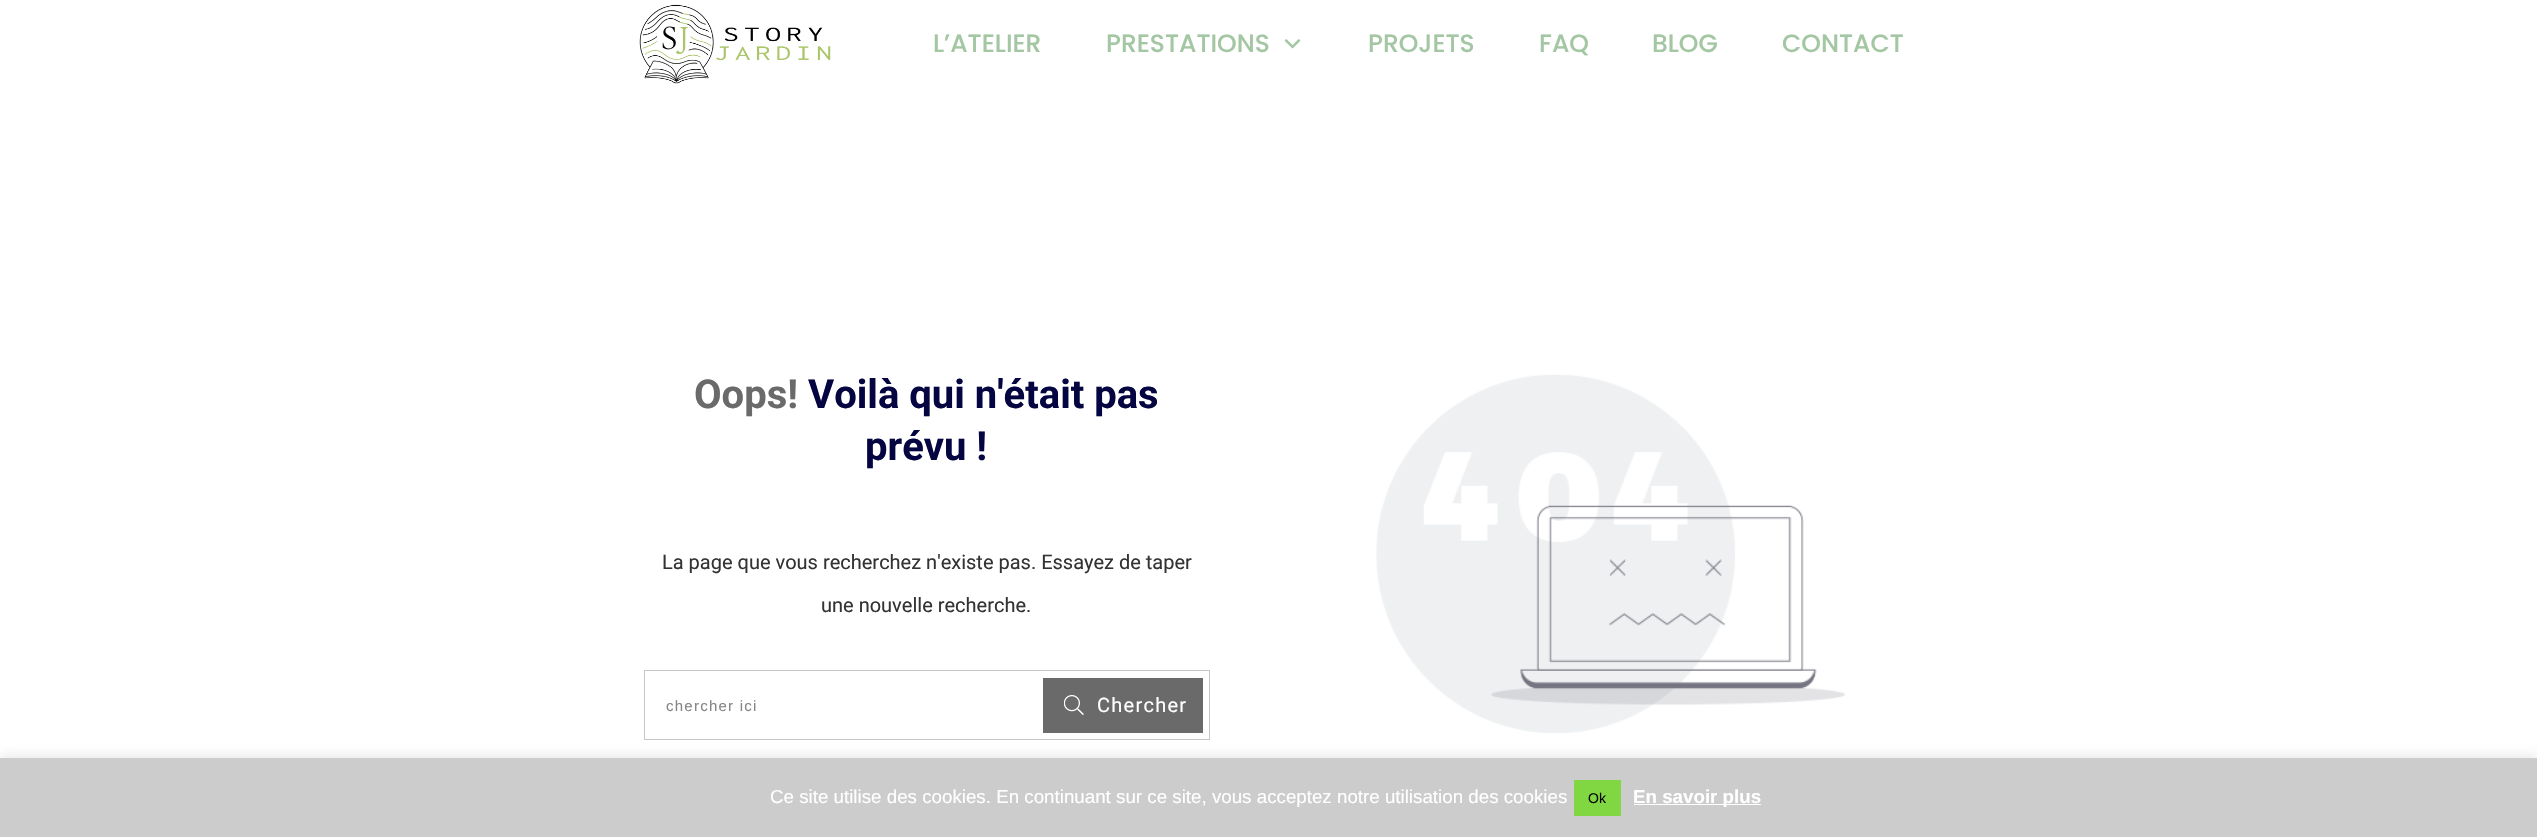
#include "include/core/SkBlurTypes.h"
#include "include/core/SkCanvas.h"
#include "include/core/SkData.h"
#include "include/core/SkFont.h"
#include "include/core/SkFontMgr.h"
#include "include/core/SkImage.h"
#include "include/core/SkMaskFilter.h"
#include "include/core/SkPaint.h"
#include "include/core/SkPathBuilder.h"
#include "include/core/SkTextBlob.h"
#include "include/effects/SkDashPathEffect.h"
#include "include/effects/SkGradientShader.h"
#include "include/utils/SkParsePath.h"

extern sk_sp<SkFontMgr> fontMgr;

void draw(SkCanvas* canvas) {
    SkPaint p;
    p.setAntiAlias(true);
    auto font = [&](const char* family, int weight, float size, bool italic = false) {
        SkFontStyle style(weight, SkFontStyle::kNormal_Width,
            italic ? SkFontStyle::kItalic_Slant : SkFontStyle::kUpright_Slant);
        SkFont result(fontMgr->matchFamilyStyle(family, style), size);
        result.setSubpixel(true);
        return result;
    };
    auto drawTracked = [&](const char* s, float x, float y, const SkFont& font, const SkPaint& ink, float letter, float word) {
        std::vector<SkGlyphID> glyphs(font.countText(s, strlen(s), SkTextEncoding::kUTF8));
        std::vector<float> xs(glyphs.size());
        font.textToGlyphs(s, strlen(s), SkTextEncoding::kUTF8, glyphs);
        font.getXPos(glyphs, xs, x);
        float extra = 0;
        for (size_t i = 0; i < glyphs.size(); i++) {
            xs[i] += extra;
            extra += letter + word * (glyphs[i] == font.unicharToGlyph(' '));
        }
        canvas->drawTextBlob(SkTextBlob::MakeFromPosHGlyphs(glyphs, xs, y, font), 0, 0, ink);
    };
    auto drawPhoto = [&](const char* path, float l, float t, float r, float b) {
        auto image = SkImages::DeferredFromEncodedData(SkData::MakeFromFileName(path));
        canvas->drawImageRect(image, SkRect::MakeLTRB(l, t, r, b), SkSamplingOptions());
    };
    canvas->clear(0xFFFFFFFF);
    drawPhoto("media/1.png", 639, 4, 831, 84);
    auto font1 = font("Poppins", 500, 25);
    p.setColor(0xFFA3C6A3);
    canvas->drawString("L’ATELIER", 933, 52, font1, p);
    canvas->drawString("PRESTATIONS", 1106, 52, font1, p);
    drawPhoto("media/2.png", 1284, 39, 1301, 49);
    {
        const struct { const char* s; float x, y; } items[] = {
            {"PROJETS", 1368, 52},
            {"FAQ", 1539, 52},
            {"BLOG", 1652, 52},
        };
        for (auto [s, x, y] : items) {
            canvas->drawString(s, x, y, font1, p);
        }
    }
    canvas->save();
    canvas->clipRect(SkRect::MakeLTRB(1783, 19, 1904, 69));
    canvas->drawString("CONTACT", 1782, 52, font1, p);
    canvas->restore();
    auto font2 = font("Roboto", 700, 40);
    p.setColor(0xFF6A6A6A);
    canvas->drawString("Oops!", 694, 408, font2, p);
    p.setColor(0xFF050541);
    canvas->drawString("Voilà qui n'était pas", 808, 408, font2, p);
    canvas->drawString("prévu !", 865, 460, font2, p);
    auto font3 = font("Roboto", 400, 20);
    p.setColor(0xFF333333);
    canvas->drawString("La page que vous recherchez n'existe pas. Essayez de taper", 662, 569, font3, p);
    canvas->drawString("une nouvelle recherche.", 821, 612, font3, p);
    p.setStyle(SkPaint::kStroke_Style);
    p.setStrokeWidth(1);
    p.setColor(0xFFC7C7C7);
    canvas->drawRect(SkRect::MakeLTRB(644.5f, 670.5f, 1209.5f, 739.5f), p);
    auto font4 = font("Liberation Sans", 400, 15);
    p.setStyle(SkPaint::kFill_Style);
    p.setColor(0xFF858585);
    drawTracked("chercher ici", 666, 711, font4, p, 1.25f, 0);
    p.setColor(0xFF6A6A6A);
    canvas->drawRect(SkRect::MakeLTRB(1043, 678, 1203, 733), p);
    drawPhoto("media/3.png", 1064, 695, 1084, 715);
    p.setColor(0xFFFFFFFF);
    drawTracked("Chercher", 1097, 712, font3, p, 1.25f, 0);
    drawPhoto("media/4.png", 1376, 374, 1845, 733);
    p.setColor(0x4DACABAB);
    p.setMaskFilter(SkMaskFilter::MakeBlur(kNormal_SkBlurStyle, 6));
    canvas->drawRect(SkRect::MakeLTRB(0, 756, 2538, 836), p);
    p.setMaskFilter(nullptr);
    p.setColor(0xFFCCCCCC);
    canvas->drawRect(SkRect::MakeLTRB(0, 758, 2537, 837), p);
    auto font5 = font("Liberation Sans", 400, 18.75f);
    p.setColor(0xFFFFFFFF);
    canvas->drawString("Ce site utilise des cookies. En continuant sur ce site, vous acceptez notre utilisation des cookies", 770, 803, font5, p);
    p.setColor(0xFF81D742);
    canvas->drawRect(SkRect::MakeLTRB(1574, 780, 1621, 816), p);
    auto font6 = font("Liberation Sans", 400, 14);
    p.setColor(0xFF000000);
    canvas->drawString("Ok", 1588, 803, font6, p);
    p.setColor(0xFFFFFFFF);
    canvas->drawRect(SkRect::MakeLTRB(1634, 804, 1761, 805), p);
    auto font7 = font("Liberation Sans", 700, 18.75f);
    canvas->drawString("En savoir plus", 1633, 803, font7, p);
}
